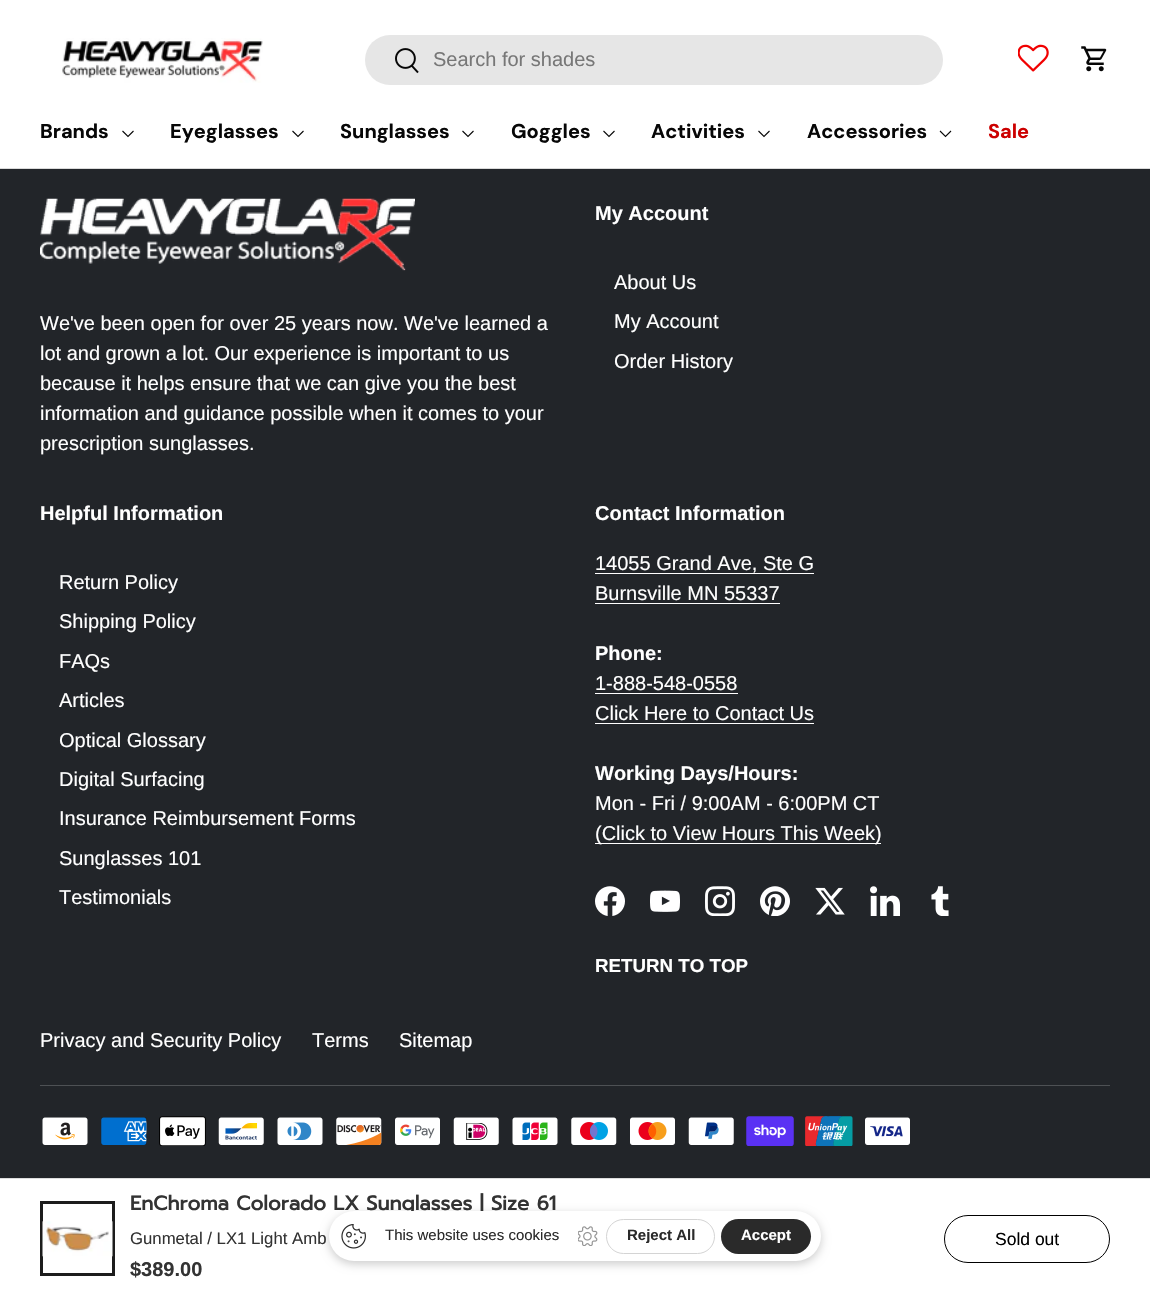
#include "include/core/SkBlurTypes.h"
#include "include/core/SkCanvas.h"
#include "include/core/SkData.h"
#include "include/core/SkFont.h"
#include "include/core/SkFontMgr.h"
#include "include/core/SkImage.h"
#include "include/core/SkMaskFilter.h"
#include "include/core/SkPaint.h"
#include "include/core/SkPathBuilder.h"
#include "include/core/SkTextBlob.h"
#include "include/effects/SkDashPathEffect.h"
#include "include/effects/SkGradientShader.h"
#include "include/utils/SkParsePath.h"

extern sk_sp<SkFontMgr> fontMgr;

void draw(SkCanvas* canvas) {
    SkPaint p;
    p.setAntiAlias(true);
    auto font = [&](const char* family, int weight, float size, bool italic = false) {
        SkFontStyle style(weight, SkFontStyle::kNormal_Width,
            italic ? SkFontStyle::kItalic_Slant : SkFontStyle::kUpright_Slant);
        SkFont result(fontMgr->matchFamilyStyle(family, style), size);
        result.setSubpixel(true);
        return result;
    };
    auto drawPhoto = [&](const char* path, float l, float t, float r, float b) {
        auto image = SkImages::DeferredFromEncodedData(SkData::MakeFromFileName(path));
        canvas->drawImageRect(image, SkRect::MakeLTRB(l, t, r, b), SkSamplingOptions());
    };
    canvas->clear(0xFF222529);
    p.setColor(0xFFFFFFFF);
    canvas->drawRect(SkRect::MakeLTRB(0, 0, 1150, 168), p);
    p.setColor(0xFFDADADA);
    canvas->drawRect(SkRect::MakeLTRB(0, 168, 1150, 169), p);
    drawPhoto("media/1.png", 62, 38, 263, 83);
    p.setColor(0xFFE6E6E6);
    canvas->drawRoundRect(SkRect::MakeLTRB(365, 35, 943, 85), 25, 25, p);
    drawPhoto("media/2.png", 395, 48, 419, 74);
    auto font1 = font("Liberation Sans", 400, 20);
    p.setColor(0xFF777777);
    canvas->drawString("Search for shades", 433, 66, font1, p);
    drawPhoto("media/3.png", 1018, 44, 1049, 72);
    drawPhoto("media/4.png", 1081, 46, 1107, 72);
    auto font2 = font("DM Sans", 700, 20);
    p.setColor(0xFF070707);
    canvas->drawString("Brands", 40, 138, font2, p);
    p.setStyle(SkPaint::kStroke_Style);
    p.setStrokeWidth(1.1f);
    canvas->drawPath(SkPathBuilder().moveTo(133.5f, 131).lineTo(128, 136.5f).lineTo(122.5f, 131).detach(), p);
    p.setStyle(SkPaint::kFill_Style);
    canvas->drawString("Eyeglasses", 170, 138, font2, p);
    p.setStyle(SkPaint::kStroke_Style);
    canvas->drawPath(SkPathBuilder().moveTo(303.5f, 131).lineTo(298, 136.5f).lineTo(292.5f, 131).detach(), p);
    p.setStyle(SkPaint::kFill_Style);
    canvas->drawString("Sunglasses", 340, 138, font2, p);
    p.setStyle(SkPaint::kStroke_Style);
    canvas->drawPath(SkPathBuilder().moveTo(473.5f, 131).lineTo(468, 136.5f).lineTo(462.5f, 131).detach(), p);
    p.setStyle(SkPaint::kFill_Style);
    canvas->drawString("Goggles", 511, 138, font2, p);
    p.setStyle(SkPaint::kStroke_Style);
    canvas->drawPath(SkPathBuilder().moveTo(614.5f, 131).lineTo(609, 136.5f).lineTo(603.5f, 131).detach(), p);
    p.setStyle(SkPaint::kFill_Style);
    canvas->drawString("Activities", 651, 138, font2, p);
    p.setStyle(SkPaint::kStroke_Style);
    canvas->drawPath(SkPathBuilder().moveTo(769.5f, 131).lineTo(764, 136.5f).lineTo(758.5f, 131).detach(), p);
    p.setStyle(SkPaint::kFill_Style);
    canvas->drawString("Accessories", 807, 138, font2, p);
    p.setStyle(SkPaint::kStroke_Style);
    canvas->drawPath(SkPathBuilder().moveTo(951, 131).lineTo(945.5f, 136.5f).lineTo(940, 131).detach(), p);
    p.setStyle(SkPaint::kFill_Style);
    p.setColor(0xFFCC0000);
    canvas->drawString("Sale", 988, 138, font2, p);
    drawPhoto("media/5.png", 40, 198, 415, 271);
    p.setColor(0xFFFFFFFF);
    {
        const struct { const char* s; float x, y; } items[] = {
            {"We've been open for over 25 years now. We've learned a", 40, 330},
            {"lot and grown a lot. Our experience is important to us", 40, 360},
            {"because it helps ensure that we can give you the best", 40, 390},
            {"information and guidance possible when it comes to your", 40, 420},
            {"prescription sunglasses.", 40, 450},
        };
        for (auto [s, x, y] : items) {
            canvas->drawString(s, x, y, font1, p);
        }
    }
    auto font3 = font("Liberation Sans", 700, 20);
    canvas->drawString("My Account", 595, 220, font3, p);
    {
        const struct { const char* s; float x, y; } items[] = {
            {"About Us", 614, 289},
            {"My Account", 614, 328},
            {"Order History", 614, 368},
        };
        for (auto [s, x, y] : items) {
            canvas->drawString(s, x, y, font1, p);
        }
    }
    canvas->drawString("Helpful Information", 40, 520, font3, p);
    {
        const struct { const char* s; float x, y; } items[] = {
            {"Return Policy", 59, 589},
            {"Shipping Policy", 59, 628},
            {"FAQs", 59, 668},
            {"Articles", 59, 707},
            {"Optical Glossary", 59, 747},
            {"Digital Surfacing", 59, 786},
            {"Insurance Reimbursement Forms", 59, 825},
            {"Sunglasses 101", 59, 865},
            {"Testimonials", 59, 904},
        };
        for (auto [s, x, y] : items) {
            canvas->drawString(s, x, y, font1, p);
        }
    }
    canvas->drawString("Contact Information", 595, 520, font3, p);
    canvas->drawString("14055 Grand Ave, Ste G", 595, 570, font1, p);
    canvas->drawRect(SkRect::MakeLTRB(595, 573, 814, 574), p);
    canvas->drawString("Burnsville MN 55337", 595, 600, font1, p);
    canvas->drawRect(SkRect::MakeLTRB(595, 603, 780, 604), p);
    canvas->drawString("Phone:", 595, 660, font3, p);
    canvas->drawString("1-888-548-0558", 595, 690, font1, p);
    canvas->drawRect(SkRect::MakeLTRB(595, 693, 738, 694), p);
    canvas->drawString("Click Here to Contact Us", 595, 720, font1, p);
    canvas->drawRect(SkRect::MakeLTRB(595, 723, 814, 724), p);
    canvas->drawString("Working Days/Hours:", 595, 780, font3, p);
    canvas->drawString("Mon - Fri / 9:00AM - 6:00PM CT", 595, 810, font1, p);
    canvas->drawRect(SkRect::MakeLTRB(595, 843, 881, 844), p);
    canvas->drawString("(Click to View Hours This Week)", 595, 840, font1, p);
    drawPhoto("media/6.png", 595, 886, 625, 916);
    drawPhoto("media/7.png", 650, 890, 680, 912);
    drawPhoto("media/8.png", 705, 886, 735, 916);
    drawPhoto("media/9.png", 760, 886, 790, 916);
    drawPhoto("media/10.png", 815, 887, 845, 915);
    drawPhoto("media/11.png", 870, 886, 900, 916);
    drawPhoto("media/12.png", 931, 886, 949, 916);
    auto font4 = font("Liberation Sans", 700, 18.75f);
    canvas->drawString("RETURN TO TOP", 595, 972, font4, p);
    {
        const struct { const char* s; float x, y; } items[] = {
            {"Privacy and Security Policy", 40, 1047},
            {"Terms", 312, 1047},
            {"Sitemap", 399, 1047},
        };
        for (auto [s, x, y] : items) {
            canvas->drawString(s, x, y, font1, p);
        }
    }
    p.setColor(0xFF4E5154);
    canvas->drawRect(SkRect::MakeLTRB(40, 1085, 1110, 1086), p);
    drawPhoto("media/13.png", 42, 1117, 88, 1145);
    drawPhoto("media/14.png", 101, 1117, 147, 1145);
    drawPhoto("media/15.png", 159, 1116, 206, 1146);
    drawPhoto("media/16.png", 218, 1117, 264, 1145);
    drawPhoto("media/17.png", 277, 1117, 323, 1145);
    drawPhoto("media/18.png", 336, 1117, 382, 1145);
    drawPhoto("media/19.png", 395, 1117, 440, 1145);
    drawPhoto("media/20.png", 453, 1117, 499, 1145);
    drawPhoto("media/21.png", 512, 1117, 558, 1145);
    drawPhoto("media/22.png", 571, 1117, 617, 1145);
    drawPhoto("media/23.png", 630, 1117, 675, 1145);
    drawPhoto("media/24.png", 688, 1117, 734, 1145);
    drawPhoto("media/25.png", 746, 1116, 794, 1146);
    drawPhoto("media/26.png", 805, 1116, 853, 1146);
    drawPhoto("media/27.png", 865, 1117, 910, 1145);
    p.setColor(0xFFFFFFFF);
    canvas->drawRect(SkRect::MakeLTRB(0, 1179, 1150, 1298), p);
    p.setColor(0xFFDDDDDD);
    canvas->drawRect(SkRect::MakeLTRB(0, 1178, 1150, 1179), p);
    p.setStyle(SkPaint::kStroke_Style);
    p.setStrokeWidth(3);
    p.setColor(0xFF1C1C1C);
    canvas->drawRect(SkRect::MakeLTRB(41.5f, 1202.5f, 113.5f, 1274.5f), p);
    drawPhoto("media/28.png", 42, 1221, 113, 1257);
    auto font5 = font("Prompt", 700, 20);
    p.setStyle(SkPaint::kFill_Style);
    p.setColor(0xFF333333);
    canvas->drawString("EnChroma Colorado LX Sunglasses | Size 61", 130, 1210, font5, p);
    auto font6 = font("Liberation Sans", 400, 16.75f);
    canvas->drawString("Gunmetal / LX1 Light Amb", 130, 1244, font6, p);
    canvas->drawString("$389.00", 130, 1276, font3, p);
    p.setStyle(SkPaint::kStroke_Style);
    p.setStrokeWidth(1);
    p.setColor(0xFF000000);
    canvas->drawRoundRect(SkRect::MakeLTRB(944.5f, 1215.5f, 1109.5f, 1262.5f), 23.5f, 23.5f, p);
    auto font7 = font("Liberation Sans", 400, 17.5f);
    p.setStyle(SkPaint::kFill_Style);
    canvas->drawString("Sold out", 995, 1245, font7, p);
    p.setColor(0x33000000);
    p.setMaskFilter(SkMaskFilter::MakeBlur(kNormal_SkBlurStyle, 5));
    canvas->drawRoundRect(SkRect::MakeLTRB(329, 1214, 821, 1264), 25, 25, p);
    p.setMaskFilter(nullptr);
    p.setColor(0xFFFFFFFF);
    canvas->drawRoundRect(SkRect::MakeLTRB(329, 1211, 821, 1261), 25, 25, p);
    drawPhoto("media/29.png", 341, 1224, 366, 1249);
    auto font8 = font("Liberation Sans", 400, 15);
    p.setColor(0xFF2A2A2A);
    canvas->drawString("This website uses cookies", 385, 1240, font8, p);
    drawPhoto("media/30.png", 578, 1226, 598, 1246);
    p.setStyle(SkPaint::kStroke_Style);
    p.setColor(0xFFD4D4D4);
    canvas->drawRoundRect(SkRect::MakeLTRB(606.5f, 1219.5f, 714.5f, 1253.5f), 17, 17, p);
    auto font9 = font("Liberation Sans", 700, 15);
    p.setStyle(SkPaint::kFill_Style);
    p.setColor(0xFF2A2A2A);
    canvas->drawString("Reject All", 627, 1240, font9, p);
    canvas->drawRoundRect(SkRect::MakeLTRB(721, 1219, 811, 1254), 17.5f, 17.5f, p);
    p.setColor(0xFFFFFFFF);
    canvas->drawString("Accept", 741, 1240, font9, p);
}
